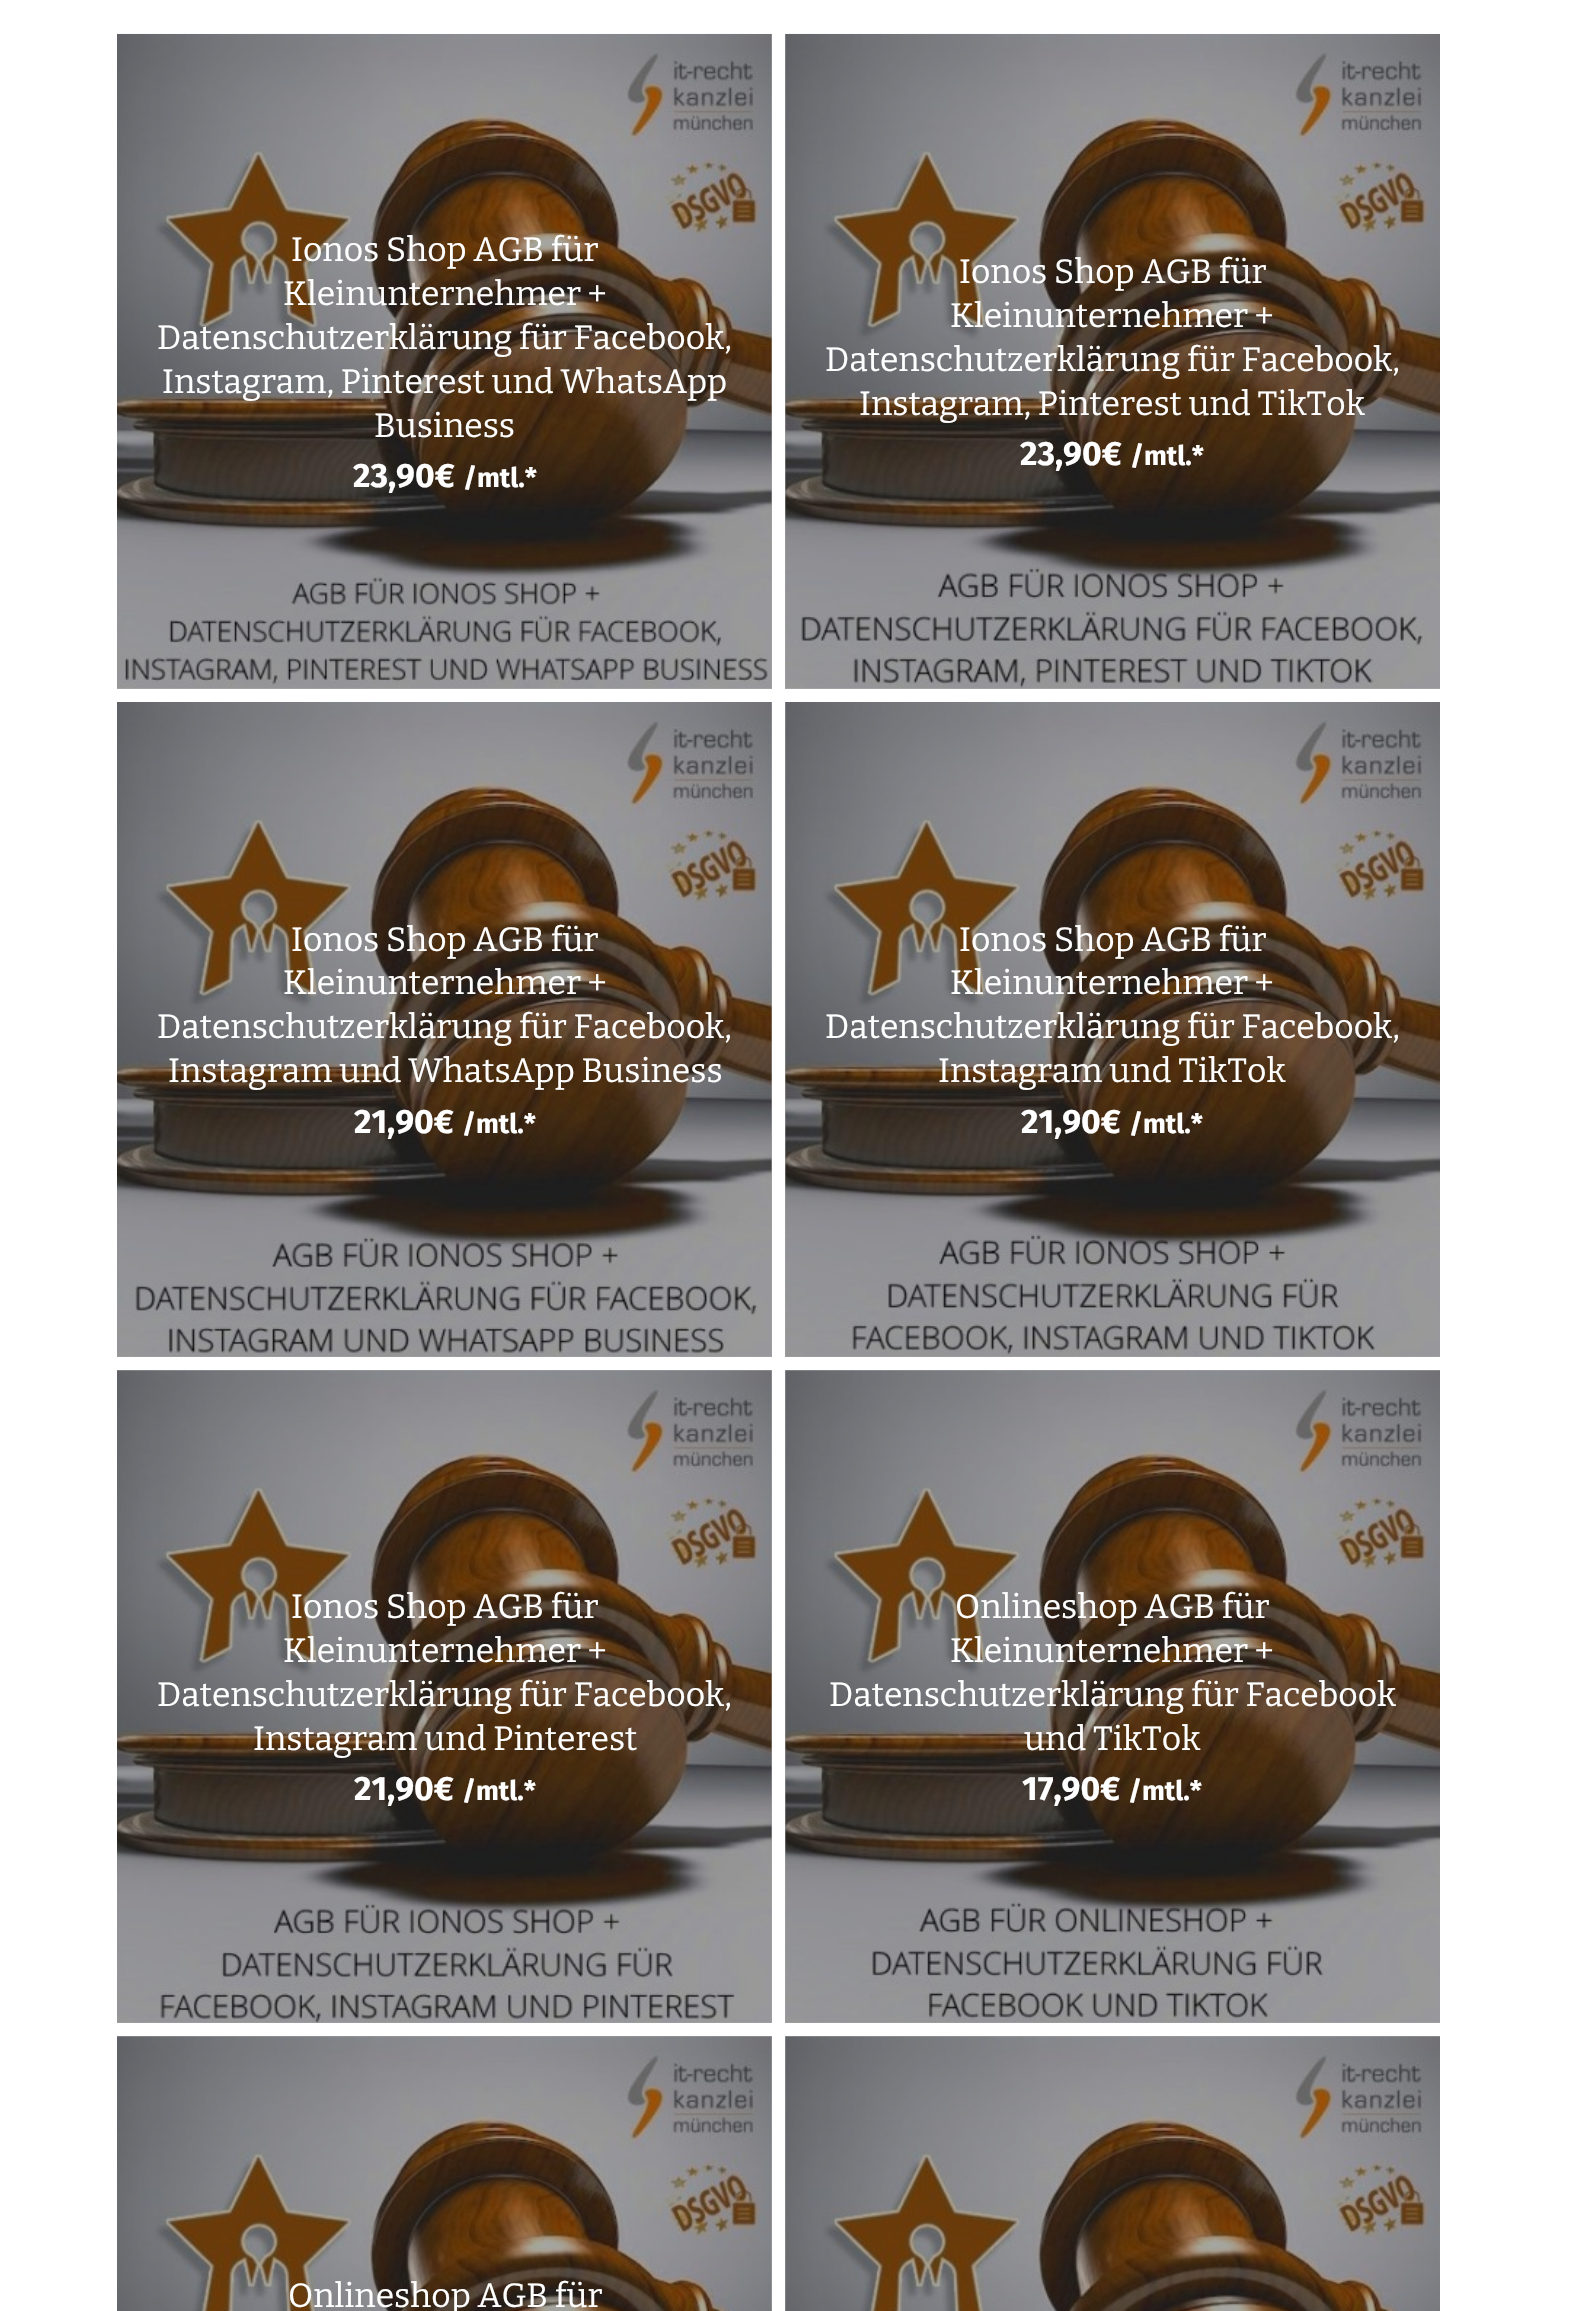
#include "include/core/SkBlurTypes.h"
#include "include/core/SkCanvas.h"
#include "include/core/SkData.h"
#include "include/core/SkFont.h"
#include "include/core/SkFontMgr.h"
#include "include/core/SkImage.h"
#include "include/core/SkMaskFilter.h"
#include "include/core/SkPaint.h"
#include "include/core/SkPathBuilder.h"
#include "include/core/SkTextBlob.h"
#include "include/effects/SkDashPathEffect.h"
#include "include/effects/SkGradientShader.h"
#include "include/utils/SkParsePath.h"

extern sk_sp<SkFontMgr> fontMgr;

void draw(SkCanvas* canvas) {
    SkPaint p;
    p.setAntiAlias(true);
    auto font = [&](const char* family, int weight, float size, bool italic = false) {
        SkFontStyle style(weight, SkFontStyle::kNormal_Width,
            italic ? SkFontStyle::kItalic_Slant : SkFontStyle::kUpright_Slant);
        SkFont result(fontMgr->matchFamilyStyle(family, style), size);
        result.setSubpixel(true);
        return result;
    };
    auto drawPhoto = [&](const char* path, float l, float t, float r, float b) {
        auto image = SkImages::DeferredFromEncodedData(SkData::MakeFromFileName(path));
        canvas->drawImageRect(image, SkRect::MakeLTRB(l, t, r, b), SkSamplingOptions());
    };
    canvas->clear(0xFFFFFFFF);
    {
        const struct { float l, t, r, b; SkColor color; } items[] = {
            {785, 2036, 1440, 2311, 0xFFA6A6A6},
            {117, 2036, 772, 2311, 0xFFA6A6A6},
            {785, 1370, 1440, 2023, 0xFFA6A6A6},
            {117, 1370, 772, 2023, 0xFFA6A6A6},
            {785, 702, 1440, 1357, 0xFFA6A6A6},
            {117, 702, 772, 1357, 0xFFA6A6A6},
            {785, 34, 1440, 689, 0xFFA6A6A6},
            {117, 34, 772, 689, 0xFFA6A6A6},
        };
        for (auto [l, t, r, b, color] : items) {
            p.setColor(color);
            canvas->drawRect(SkRect::MakeLTRB(l, t, r, b), p);
        }
    }
    drawPhoto("media/1.png", 117, 33, 772, 689);
    auto font1 = font("Bitter", 100, 33.75f);
    p.setColor(0xFFFFFFFF);
    {
        const struct { const char* s; float x, y; } items[] = {
            {"Ionos Shop AGB für", 291, 261},
            {"Kleinunternehmer +", 283, 305},
            {"Datenschutzerklärung für Facebook,", 157, 349},
            {"Instagram, Pinterest und WhatsApp", 162, 393},
            {"Business", 374, 437},
        };
        for (auto [s, x, y] : items) {
            canvas->drawString(s, x, y, font1, p);
        }
    }
    auto font2 = font("Fira Sans", 700, 33.75f);
    canvas->drawString("23,90€", 353, 487, font2, p);
    auto font3 = font("Fira Sans", 700, 27);
    canvas->drawString("/mtl.*", 463, 487, font3, p);
    drawPhoto("media/2.png", 785, 33, 1440, 689);
    {
        const struct { const char* s; float x, y; } items[] = {
            {"Ionos Shop AGB für", 959, 283},
            {"Kleinunternehmer +", 950, 327},
            {"Datenschutzerklärung für Facebook,", 825, 371},
            {"Instagram, Pinterest und TikTok", 859, 415},
        };
        for (auto [s, x, y] : items) {
            canvas->drawString(s, x, y, font1, p);
        }
    }
    canvas->drawString("23,90€", 1020, 465, font2, p);
    canvas->drawString("/mtl.*", 1130, 465, font3, p);
    drawPhoto("media/3.png", 117, 702, 772, 1357);
    {
        const struct { const char* s; float x, y; } items[] = {
            {"Ionos Shop AGB für", 291, 951},
            {"Kleinunternehmer +", 283, 994},
            {"Datenschutzerklärung für Facebook,", 157, 1038},
            {"Instagram und WhatsApp Business", 168, 1082},
        };
        for (auto [s, x, y] : items) {
            canvas->drawString(s, x, y, font1, p);
        }
    }
    canvas->drawString("21,90€", 354, 1133, font2, p);
    canvas->drawString("/mtl.*", 462, 1133, font3, p);
    drawPhoto("media/4.png", 785, 702, 1440, 1357);
    {
        const struct { const char* s; float x, y; } items[] = {
            {"Ionos Shop AGB für", 959, 951},
            {"Kleinunternehmer +", 950, 994},
            {"Datenschutzerklärung für Facebook,", 825, 1038},
            {"Instagram und TikTok", 938, 1082},
        };
        for (auto [s, x, y] : items) {
            canvas->drawString(s, x, y, font1, p);
        }
    }
    canvas->drawString("21,90€", 1021, 1133, font2, p);
    canvas->drawString("/mtl.*", 1129, 1133, font3, p);
    drawPhoto("media/5.png", 117, 1370, 772, 2023);
    {
        const struct { const char* s; float x, y; } items[] = {
            {"Ionos Shop AGB für", 291, 1618},
            {"Kleinunternehmer +", 283, 1662},
            {"Datenschutzerklärung für Facebook,", 157, 1706},
            {"Instagram und Pinterest", 253, 1750},
        };
        for (auto [s, x, y] : items) {
            canvas->drawString(s, x, y, font1, p);
        }
    }
    canvas->drawString("21,90€", 354, 1800, font2, p);
    canvas->drawString("/mtl.*", 462, 1800, font3, p);
    drawPhoto("media/6.png", 785, 1370, 1440, 2023);
    {
        const struct { const char* s; float x, y; } items[] = {
            {"Onlineshop AGB für", 955, 1618},
            {"Kleinunternehmer +", 950, 1662},
            {"Datenschutzerklärung für Facebook", 829, 1706},
            {"und TikTok", 1024, 1750},
        };
        for (auto [s, x, y] : items) {
            canvas->drawString(s, x, y, font1, p);
        }
    }
    canvas->drawString("17,90€", 1022, 1800, font2, p);
    canvas->drawString("/mtl.*", 1128, 1800, font3, p);
    drawPhoto("media/7.png", 117, 2036, 772, 2311);
    canvas->drawString("Onlineshop AGB für", 288, 2307, font1, p);
    drawPhoto("media/8.png", 785, 2036, 1440, 2311);
}
